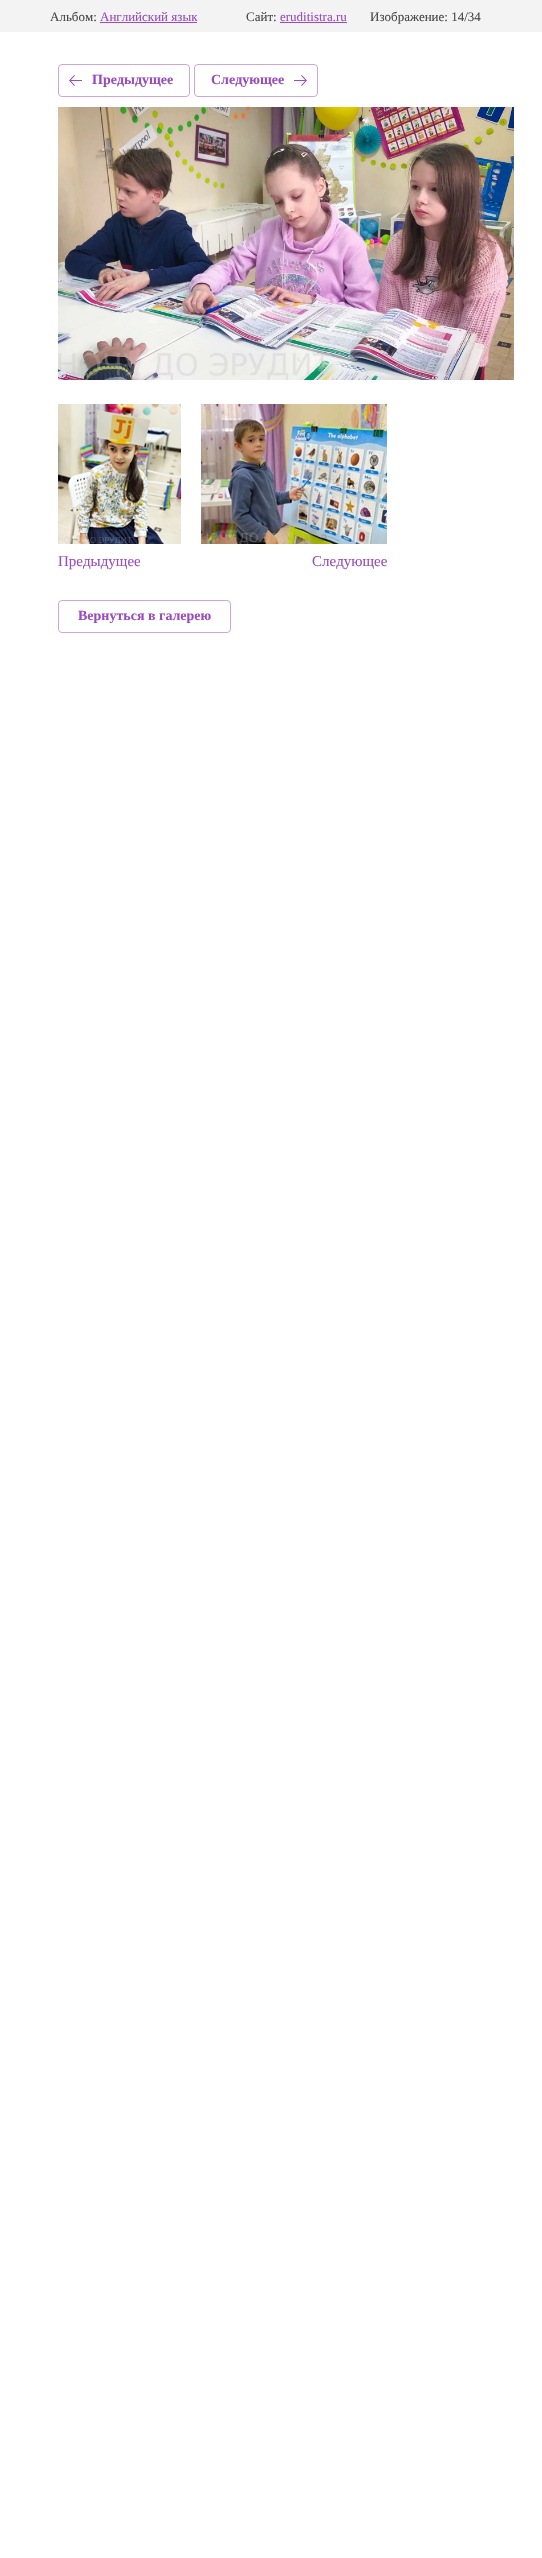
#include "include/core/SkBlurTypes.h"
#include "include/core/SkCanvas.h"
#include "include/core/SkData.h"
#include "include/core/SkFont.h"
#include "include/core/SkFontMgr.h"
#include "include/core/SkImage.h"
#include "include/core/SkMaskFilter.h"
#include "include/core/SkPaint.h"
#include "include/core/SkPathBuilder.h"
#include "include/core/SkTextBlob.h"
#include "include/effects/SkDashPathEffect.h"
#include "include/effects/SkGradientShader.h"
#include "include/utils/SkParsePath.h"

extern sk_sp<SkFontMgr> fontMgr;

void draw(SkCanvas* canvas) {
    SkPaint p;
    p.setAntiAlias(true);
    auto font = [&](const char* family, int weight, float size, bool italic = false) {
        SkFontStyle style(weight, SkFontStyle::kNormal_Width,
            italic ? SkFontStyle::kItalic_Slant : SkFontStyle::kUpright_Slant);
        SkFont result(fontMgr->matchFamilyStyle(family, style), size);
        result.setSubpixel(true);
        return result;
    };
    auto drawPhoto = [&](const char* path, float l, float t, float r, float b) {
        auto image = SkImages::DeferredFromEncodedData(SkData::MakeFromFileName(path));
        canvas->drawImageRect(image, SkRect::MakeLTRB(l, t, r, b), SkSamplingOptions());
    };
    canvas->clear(0xFFFFFFFF);
    p.setColor(0xFFF3F3F3);
    canvas->drawRect(SkRect::MakeLTRB(0, 0, 542, 32), p);
    auto font1 = font("Liberation Serif", 400, 13);
    p.setColor(0xFF484848);
    canvas->drawString("Альбом:", 50, 21, font1, p);
    p.setColor(0xFF9A4CBD);
    canvas->drawString("Английский язык", 100, 21, font1, p);
    canvas->drawRect(SkRect::MakeLTRB(100, 22, 197, 23), p);
    p.setColor(0xFF484848);
    canvas->drawString("Сайт:", 246, 21, font1, p);
    p.setColor(0xFF9A4CBD);
    canvas->drawString("eruditistra.ru", 280, 21, font1, p);
    canvas->drawRect(SkRect::MakeLTRB(280, 22, 347, 23), p);
    p.setColor(0xFF484848);
    canvas->drawString("Изображение: 14/34", 370, 21, font1, p);
    p.setStyle(SkPaint::kStroke_Style);
    p.setStrokeWidth(1);
    p.setColor(0xFFCDA6DE);
    canvas->drawRoundRect(SkRect::MakeLTRB(58.5f, 64.5f, 189.5f, 96.5f), 3.5f, 3.5f, p);
    drawPhoto("media/1.png", 69, 75, 82, 86);
    auto font2 = font("Liberation Serif", 700, 14);
    p.setStyle(SkPaint::kFill_Style);
    p.setColor(0xFF9A4CBD);
    canvas->drawString("Предыдущее", 92, 84, font2, p);
    p.setStyle(SkPaint::kStroke_Style);
    p.setColor(0xFFCDA6DE);
    canvas->drawRoundRect(SkRect::MakeLTRB(194.5f, 64.5f, 317.5f, 96.5f), 3.5f, 3.5f, p);
    p.setStyle(SkPaint::kFill_Style);
    p.setColor(0xFF9A4CBD);
    canvas->drawString("Следующее", 211, 84, font2, p);
    drawPhoto("media/2.png", 294, 75, 307, 86);
    drawPhoto("media/3.png", 58, 107, 514, 380);
    drawPhoto("media/4.png", 58, 404, 181, 544);
    auto font3 = font("Liberation Serif", 400, 15);
    canvas->drawString("Предыдущее", 58, 566, font3, p);
    drawPhoto("media/5.png", 201, 404, 387, 544);
    canvas->drawString("Следующее", 312, 566, font3, p);
    p.setStyle(SkPaint::kStroke_Style);
    p.setColor(0xFFCDA6DE);
    canvas->drawRoundRect(SkRect::MakeLTRB(58.5f, 600.5f, 230.5f, 632.5f), 3.5f, 3.5f, p);
    p.setStyle(SkPaint::kFill_Style);
    p.setColor(0xFF9A4CBD);
    canvas->drawString("Вернуться в галерею", 78, 620, font2, p);
}
